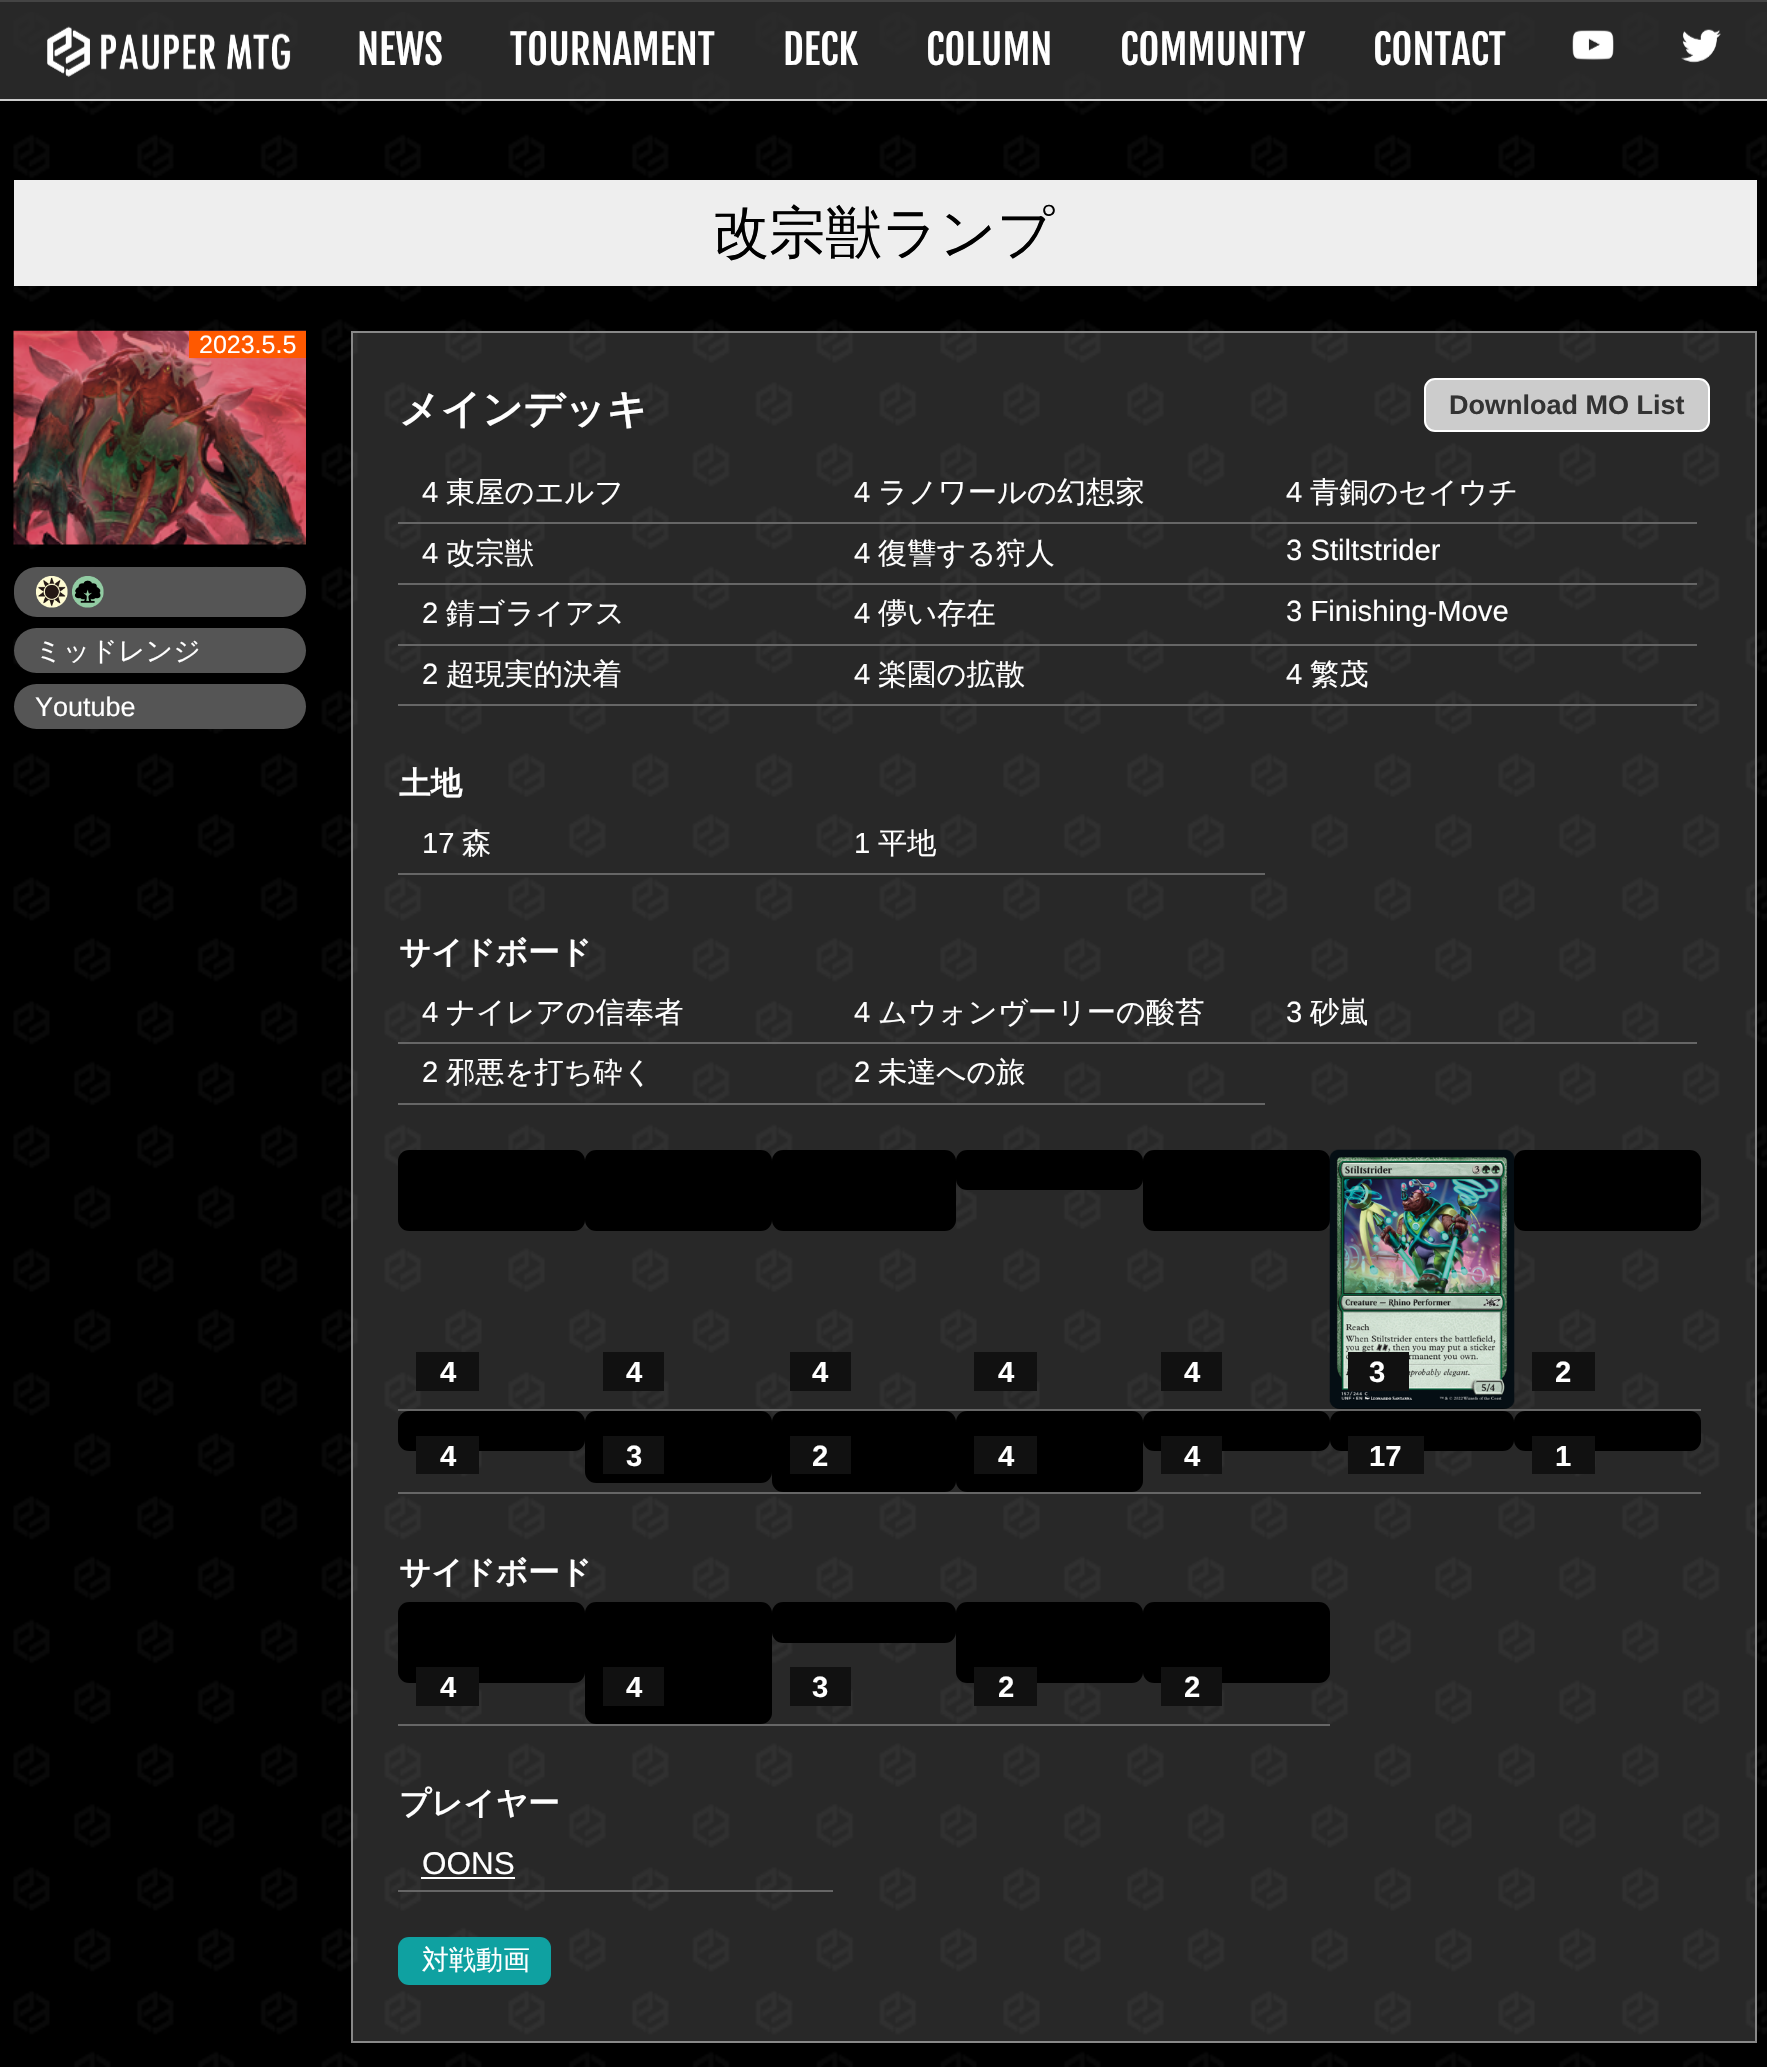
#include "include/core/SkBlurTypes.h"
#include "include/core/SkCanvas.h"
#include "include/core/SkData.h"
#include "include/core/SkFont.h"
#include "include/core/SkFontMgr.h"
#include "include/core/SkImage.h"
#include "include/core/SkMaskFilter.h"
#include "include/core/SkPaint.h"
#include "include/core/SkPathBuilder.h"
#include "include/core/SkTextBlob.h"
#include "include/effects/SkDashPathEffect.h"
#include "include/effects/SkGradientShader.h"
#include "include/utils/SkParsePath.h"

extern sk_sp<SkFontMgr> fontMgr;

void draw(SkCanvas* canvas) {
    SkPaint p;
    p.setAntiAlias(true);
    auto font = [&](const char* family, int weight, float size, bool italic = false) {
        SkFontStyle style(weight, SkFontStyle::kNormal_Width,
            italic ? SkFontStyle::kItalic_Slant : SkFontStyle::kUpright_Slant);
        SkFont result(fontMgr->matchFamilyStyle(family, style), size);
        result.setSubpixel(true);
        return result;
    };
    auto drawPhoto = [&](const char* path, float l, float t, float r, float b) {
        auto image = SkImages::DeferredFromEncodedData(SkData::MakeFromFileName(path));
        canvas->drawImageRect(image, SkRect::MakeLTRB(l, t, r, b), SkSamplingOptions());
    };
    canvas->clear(0xFF000000);
    drawPhoto("media/1.png", 13, 12, 1767, 2067);
    {
        const struct { float l, t, r, b; SkColor color; } items[] = {
            {0, 2, 1767, 99, 0xCC323232},
            {0, 0, 1767, 2, 0xFF444444},
            {0, 99, 1767, 101, 0xFFCCCCCC},
        };
        for (auto [l, t, r, b, color] : items) {
            p.setColor(color);
            canvas->drawRect(SkRect::MakeLTRB(l, t, r, b), p);
        }
    }
    drawPhoto("media/2.png", 47, 26, 291, 77);
    auto font1 = font("Fjalla One", 400, 40.5f);
    p.setColor(0xFFFFFFFF);
    {
        const struct { const char* s; float x, y; } items[] = {
            {"NEWS", 357, 65},
            {"TOURNAMENT", 510, 65},
            {"DECK", 783, 65},
            {"COLUMN", 926, 65},
            {"COMMUNITY", 1120, 65},
            {"CONTACT", 1373, 65},
        };
        for (auto [s, x, y] : items) {
            canvas->drawString(s, x, y, font1, p);
        }
    }
    drawPhoto("media/3.png", 1572, 30, 1614, 60);
    drawPhoto("media/4.png", 1681, 29, 1721, 63);
    p.setColor(0xFFEEEEEE);
    canvas->drawRect(SkRect::MakeLTRB(14, 180, 1757, 286), p);
    auto font2 = font("WenQuanYi Zen Hei", 500, 56.25f);
    p.setColor(0xFF000000);
    canvas->drawString("改宗獣ランプ", 713, 252, font2, p);
    drawPhoto("media/5.png", 13, 330, 306, 545);
    p.setColor(0xFFFF5900);
    canvas->drawRect(SkRect::MakeLTRB(189, 331, 306, 358), p);
    auto font3 = font("Liberation Sans", 400, 25);
    p.setColor(0xFFFFFFFF);
    canvas->drawString("2023.5.5", 199, 353, font3, p);
    p.setColor(0xFF555555);
    canvas->drawRoundRect(SkRect::MakeLTRB(14, 567, 306, 617), 23, 23, p);
    drawPhoto("media/6.png", 36, 576, 68, 608);
    drawPhoto("media/7.png", 72, 576, 104, 608);
    canvas->drawRoundRect(SkRect::MakeLTRB(14, 628, 306, 673), 22.5f, 22.5f, p);
    auto font4 = font("WenQuanYi Zen Hei", 500, 27);
    p.setColor(0xFFFFFFFF);
    canvas->drawString("ミッドレンジ", 35, 660, font4, p);
    p.setColor(0xFF555555);
    canvas->drawRoundRect(SkRect::MakeLTRB(14, 684, 306, 729), 22.5f, 22.5f, p);
    auto font5 = font("Liberation Sans", 400, 27);
    p.setColor(0xFFFFFFFF);
    canvas->drawString("Youtube", 35, 716, font5, p);
    p.setColor(0x33C8C8C8);
    canvas->drawRect(SkRect::MakeLTRB(352, 332, 1756, 2042), p);
    p.setStyle(SkPaint::kStroke_Style);
    p.setStrokeWidth(2);
    p.setColor(0xFF888888);
    canvas->drawRect(SkRect::MakeLTRB(352, 332, 1756, 2042), p);
    auto font6 = font("WenQuanYi Zen Hei", 700, 40.5f);
    p.setStyle(SkPaint::kFill_Style);
    p.setColor(0xFFFFFFFF);
    canvas->drawString("メインデッキ", 399, 423, font6, p);
    p.setColor(0xFFCCCCCC);
    canvas->drawRoundRect(SkRect::MakeLTRB(1425, 379, 1709, 431), 10, 10, p);
    p.setStyle(SkPaint::kStroke_Style);
    p.setColor(0xFFFFFFFF);
    canvas->drawRoundRect(SkRect::MakeLTRB(1425, 379, 1709, 431), 10, 10, p);
    auto font7 = font("Liberation Sans", 700, 27);
    p.setStyle(SkPaint::kFill_Style);
    p.setColor(0xFF333333);
    canvas->drawString("Download MO List", 1449, 414, font7, p);
    p.setColor(0xFF666666);
    canvas->drawRect(SkRect::MakeLTRB(398, 522, 1697, 524), p);
    auto font8 = font("Liberation Sans", 400, 29.25f);
    p.setColor(0xFFFFFFFF);
    canvas->drawString("4", 422, 502, font8, p);
    auto font9 = font("WenQuanYi Zen Hei", 500, 29.25f);
    canvas->drawString("東屋のエルフ", 446, 502, font9, p);
    canvas->drawString("4", 854, 502, font8, p);
    canvas->drawString("ラノワールの幻想家", 878, 502, font9, p);
    canvas->drawString("4", 1286, 502, font8, p);
    canvas->drawString("青銅のセイウチ", 1310, 502, font9, p);
    p.setColor(0xFF666666);
    canvas->drawRect(SkRect::MakeLTRB(398, 583, 1697, 585), p);
    p.setColor(0xFFFFFFFF);
    canvas->drawString("4", 422, 563, font8, p);
    canvas->drawString("改宗獣", 446, 563, font9, p);
    canvas->drawString("4", 854, 563, font8, p);
    canvas->drawString("復讐する狩人", 878, 563, font9, p);
    canvas->drawString("3 Stiltstrider", 1286, 560, font8, p);
    p.setColor(0xFF666666);
    canvas->drawRect(SkRect::MakeLTRB(398, 644, 1697, 646), p);
    p.setColor(0xFFFFFFFF);
    canvas->drawString("2", 422, 623, font8, p);
    canvas->drawString("錆ゴライアス", 446, 623, font9, p);
    canvas->drawString("4", 854, 623, font8, p);
    canvas->drawString("儚い存在", 878, 623, font9, p);
    canvas->drawString("3 Finishing-Move", 1286, 621, font8, p);
    p.setColor(0xFF666666);
    canvas->drawRect(SkRect::MakeLTRB(398, 704, 1697, 706), p);
    p.setColor(0xFFFFFFFF);
    canvas->drawString("2", 422, 684, font8, p);
    canvas->drawString("超現実的決着", 446, 684, font9, p);
    canvas->drawString("4", 854, 684, font8, p);
    canvas->drawString("楽園の拡散", 878, 684, font9, p);
    canvas->drawString("4", 1286, 684, font8, p);
    canvas->drawString("繁茂", 1310, 684, font9, p);
    auto font10 = font("WenQuanYi Zen Hei", 700, 31.5f);
    canvas->drawString("土地", 399, 794, font10, p);
    p.setColor(0xFF666666);
    canvas->drawRect(SkRect::MakeLTRB(398, 873, 1265, 875), p);
    p.setColor(0xFFFFFFFF);
    canvas->drawString("17", 422, 853, font8, p);
    canvas->drawString("森", 462, 853, font9, p);
    canvas->drawString("1", 854, 853, font8, p);
    canvas->drawString("平地", 878, 853, font9, p);
    canvas->drawString("サイドボード", 399, 963, font10, p);
    p.setColor(0xFF666666);
    canvas->drawRect(SkRect::MakeLTRB(398, 1042, 1697, 1044), p);
    p.setColor(0xFFFFFFFF);
    canvas->drawString("4", 422, 1022, font8, p);
    canvas->drawString("ナイレアの信奉者", 446, 1022, font9, p);
    canvas->drawString("4", 854, 1022, font8, p);
    canvas->drawString("ムウォンヴーリーの酸苔", 878, 1022, font9, p);
    canvas->drawString("3", 1286, 1022, font8, p);
    canvas->drawString("砂嵐", 1310, 1022, font9, p);
    p.setColor(0xFF666666);
    canvas->drawRect(SkRect::MakeLTRB(398, 1103, 1265, 1105), p);
    p.setColor(0xFFFFFFFF);
    canvas->drawString("2", 422, 1082, font8, p);
    canvas->drawString("邪悪を打ち砕く", 446, 1082, font9, p);
    canvas->drawString("2", 854, 1082, font8, p);
    canvas->drawString("未達への旅", 878, 1082, font9, p);
    p.setColor(0xFF666666);
    canvas->drawRect(SkRect::MakeLTRB(398, 1409, 1701, 1411), p);
    p.setColor(0xFF000000);
    canvas->drawRoundRect(SkRect::MakeLTRB(398, 1150, 585, 1231), 11, 11, p);
    p.setColor(0xFF111111);
    canvas->drawRect(SkRect::MakeLTRB(416, 1352, 479, 1391), p);
    auto font11 = font("Liberation Sans", 700, 29.25f);
    p.setColor(0xFFFFFFFF);
    canvas->drawString("4", 440, 1382, font11, p);
    p.setColor(0xFF000000);
    canvas->drawRoundRect(SkRect::MakeLTRB(585, 1150, 772, 1231), 11, 11, p);
    p.setColor(0xFF111111);
    canvas->drawRect(SkRect::MakeLTRB(603, 1352, 664, 1391), p);
    p.setColor(0xFFFFFFFF);
    canvas->drawString("4", 626, 1382, font11, p);
    p.setColor(0xFF000000);
    canvas->drawRoundRect(SkRect::MakeLTRB(772, 1150, 956, 1231), 11, 11, p);
    p.setColor(0xFF111111);
    canvas->drawRect(SkRect::MakeLTRB(790, 1352, 851, 1391), p);
    p.setColor(0xFFFFFFFF);
    canvas->drawString("4", 812, 1382, font11, p);
    p.setColor(0xFF000000);
    canvas->drawRoundRect(SkRect::MakeLTRB(956, 1150, 1143, 1190), 11, 11, p);
    p.setColor(0xFF111111);
    canvas->drawRect(SkRect::MakeLTRB(974, 1352, 1037, 1391), p);
    p.setColor(0xFFFFFFFF);
    canvas->drawString("4", 998, 1382, font11, p);
    p.setColor(0xFF000000);
    canvas->drawRoundRect(SkRect::MakeLTRB(1143, 1150, 1330, 1231), 11, 11, p);
    p.setColor(0xFF111111);
    canvas->drawRect(SkRect::MakeLTRB(1161, 1352, 1222, 1391), p);
    p.setColor(0xFFFFFFFF);
    canvas->drawString("4", 1184, 1382, font11, p);
    p.setColor(0xFF000000);
    canvas->drawRoundRect(SkRect::MakeLTRB(1330, 1150, 1514, 1409), 11, 11, p);
    drawPhoto("media/8.png", 1329, 1149, 1515, 1409);
    p.setColor(0xFF111111);
    canvas->drawRect(SkRect::MakeLTRB(1348, 1352, 1409, 1391), p);
    p.setColor(0xFFFFFFFF);
    canvas->drawString("3", 1369, 1382, font11, p);
    p.setColor(0xFF000000);
    canvas->drawRoundRect(SkRect::MakeLTRB(1514, 1150, 1701, 1231), 11, 11, p);
    p.setColor(0xFF111111);
    canvas->drawRect(SkRect::MakeLTRB(1532, 1352, 1595, 1391), p);
    p.setColor(0xFFFFFFFF);
    canvas->drawString("2", 1555, 1382, font11, p);
    p.setColor(0xFF666666);
    canvas->drawRect(SkRect::MakeLTRB(398, 1492, 1701, 1494), p);
    p.setColor(0xFF000000);
    canvas->drawRoundRect(SkRect::MakeLTRB(398, 1411, 585, 1451), 11, 11, p);
    p.setColor(0xFF111111);
    canvas->drawRect(SkRect::MakeLTRB(416, 1436, 479, 1474), p);
    p.setColor(0xFFFFFFFF);
    canvas->drawString("4", 440, 1466, font11, p);
    p.setColor(0xFF000000);
    canvas->drawRoundRect(SkRect::MakeLTRB(585, 1411, 772, 1483), 11, 11, p);
    p.setColor(0xFF111111);
    canvas->drawRect(SkRect::MakeLTRB(603, 1436, 664, 1474), p);
    p.setColor(0xFFFFFFFF);
    canvas->drawString("3", 626, 1466, font11, p);
    p.setColor(0xFF000000);
    canvas->drawRoundRect(SkRect::MakeLTRB(772, 1411, 956, 1492), 11, 11, p);
    p.setColor(0xFF111111);
    canvas->drawRect(SkRect::MakeLTRB(790, 1436, 851, 1474), p);
    p.setColor(0xFFFFFFFF);
    canvas->drawString("2", 812, 1466, font11, p);
    p.setColor(0xFF000000);
    canvas->drawRoundRect(SkRect::MakeLTRB(956, 1411, 1143, 1492), 11, 11, p);
    p.setColor(0xFF111111);
    canvas->drawRect(SkRect::MakeLTRB(974, 1436, 1037, 1474), p);
    p.setColor(0xFFFFFFFF);
    canvas->drawString("4", 998, 1466, font11, p);
    p.setColor(0xFF000000);
    canvas->drawRoundRect(SkRect::MakeLTRB(1143, 1411, 1330, 1451), 11, 11, p);
    p.setColor(0xFF111111);
    canvas->drawRect(SkRect::MakeLTRB(1161, 1436, 1222, 1474), p);
    p.setColor(0xFFFFFFFF);
    canvas->drawString("4", 1184, 1466, font11, p);
    p.setColor(0xFF000000);
    canvas->drawRoundRect(SkRect::MakeLTRB(1330, 1411, 1514, 1451), 11, 11, p);
    p.setColor(0xFF111111);
    canvas->drawRect(SkRect::MakeLTRB(1348, 1436, 1424, 1474), p);
    p.setColor(0xFFFFFFFF);
    canvas->drawString("17", 1369, 1466, font11, p);
    p.setColor(0xFF000000);
    canvas->drawRoundRect(SkRect::MakeLTRB(1514, 1411, 1701, 1451), 11, 11, p);
    p.setColor(0xFF111111);
    canvas->drawRect(SkRect::MakeLTRB(1532, 1436, 1595, 1474), p);
    p.setColor(0xFFFFFFFF);
    canvas->drawString("1", 1555, 1466, font11, p);
    canvas->drawString("サイドボード", 399, 1583, font10, p);
    p.setColor(0xFF666666);
    canvas->drawRect(SkRect::MakeLTRB(398, 1724, 1330, 1726), p);
    p.setColor(0xFF000000);
    canvas->drawRoundRect(SkRect::MakeLTRB(398, 1602, 585, 1683), 11, 11, p);
    p.setColor(0xFF111111);
    canvas->drawRect(SkRect::MakeLTRB(416, 1667, 479, 1706), p);
    p.setColor(0xFFFFFFFF);
    canvas->drawString("4", 440, 1697, font11, p);
    p.setColor(0xFF000000);
    canvas->drawRoundRect(SkRect::MakeLTRB(585, 1602, 772, 1724), 11, 11, p);
    p.setColor(0xFF111111);
    canvas->drawRect(SkRect::MakeLTRB(603, 1667, 664, 1706), p);
    p.setColor(0xFFFFFFFF);
    canvas->drawString("4", 626, 1697, font11, p);
    p.setColor(0xFF000000);
    canvas->drawRoundRect(SkRect::MakeLTRB(772, 1602, 956, 1643), 11, 11, p);
    p.setColor(0xFF111111);
    canvas->drawRect(SkRect::MakeLTRB(790, 1667, 851, 1706), p);
    p.setColor(0xFFFFFFFF);
    canvas->drawString("3", 812, 1697, font11, p);
    p.setColor(0xFF000000);
    canvas->drawRoundRect(SkRect::MakeLTRB(956, 1602, 1143, 1683), 11, 11, p);
    p.setColor(0xFF111111);
    canvas->drawRect(SkRect::MakeLTRB(974, 1667, 1037, 1706), p);
    p.setColor(0xFFFFFFFF);
    canvas->drawString("2", 998, 1697, font11, p);
    p.setColor(0xFF000000);
    canvas->drawRoundRect(SkRect::MakeLTRB(1143, 1602, 1330, 1683), 11, 11, p);
    p.setColor(0xFF111111);
    canvas->drawRect(SkRect::MakeLTRB(1161, 1667, 1222, 1706), p);
    p.setColor(0xFFFFFFFF);
    canvas->drawString("2", 1184, 1697, font11, p);
    canvas->drawString("プレイヤー", 399, 1814, font10, p);
    p.setColor(0xFF666666);
    canvas->drawRect(SkRect::MakeLTRB(398, 1890, 833, 1892), p);
    auto font12 = font("Liberation Sans", 400, 31.5f);
    p.setColor(0xFFFFFFFF);
    canvas->drawString("OONS", 422, 1874, font12, p);
    canvas->drawRect(SkRect::MakeLTRB(421, 1877, 515, 1879), p);
    p.setColor(0xFF0FA1A1);
    canvas->drawRoundRect(SkRect::MakeLTRB(398, 1937, 551, 1985), 11, 11, p);
    p.setColor(0xFFFFFFFF);
    canvas->drawString("対戦動画", 422, 1969, font4, p);
}
